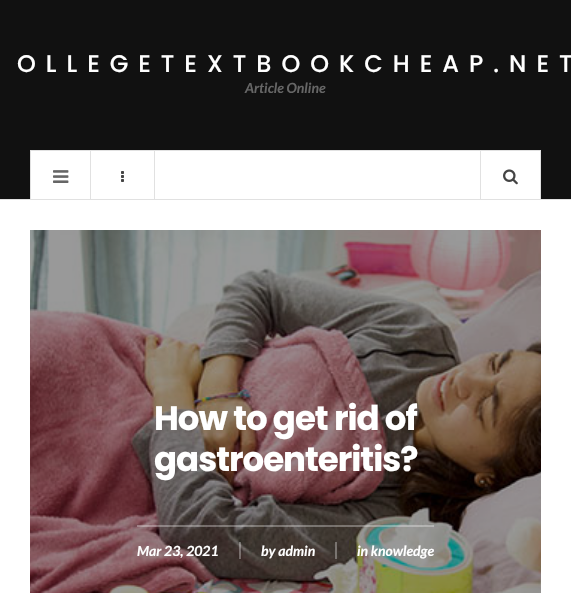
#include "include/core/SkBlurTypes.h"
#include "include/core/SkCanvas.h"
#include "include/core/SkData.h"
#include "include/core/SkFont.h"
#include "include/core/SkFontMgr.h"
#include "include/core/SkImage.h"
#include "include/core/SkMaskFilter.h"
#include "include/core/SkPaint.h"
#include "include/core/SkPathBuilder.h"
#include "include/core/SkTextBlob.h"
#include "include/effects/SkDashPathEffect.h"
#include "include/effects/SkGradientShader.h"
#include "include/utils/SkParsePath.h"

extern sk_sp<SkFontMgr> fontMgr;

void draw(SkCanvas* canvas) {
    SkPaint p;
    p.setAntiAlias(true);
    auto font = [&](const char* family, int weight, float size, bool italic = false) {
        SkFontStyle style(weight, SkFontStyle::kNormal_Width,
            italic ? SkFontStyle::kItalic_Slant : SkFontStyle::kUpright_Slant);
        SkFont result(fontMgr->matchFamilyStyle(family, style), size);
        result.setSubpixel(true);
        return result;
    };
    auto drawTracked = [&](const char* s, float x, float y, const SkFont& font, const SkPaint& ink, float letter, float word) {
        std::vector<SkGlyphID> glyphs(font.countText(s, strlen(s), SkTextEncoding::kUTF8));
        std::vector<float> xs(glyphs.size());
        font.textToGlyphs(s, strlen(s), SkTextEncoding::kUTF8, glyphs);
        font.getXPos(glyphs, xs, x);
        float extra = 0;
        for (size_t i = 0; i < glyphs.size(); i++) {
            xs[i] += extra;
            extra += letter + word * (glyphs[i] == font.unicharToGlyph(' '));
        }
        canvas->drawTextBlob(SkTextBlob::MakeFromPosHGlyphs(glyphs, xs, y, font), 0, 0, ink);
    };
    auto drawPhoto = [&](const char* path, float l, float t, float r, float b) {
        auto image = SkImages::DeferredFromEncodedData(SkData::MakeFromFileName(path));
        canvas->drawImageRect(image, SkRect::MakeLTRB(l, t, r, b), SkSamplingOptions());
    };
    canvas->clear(0xFFFFFFFF);
    p.setColor(0xFF111111);
    canvas->drawRect(SkRect::MakeLTRB(0, 0, 571, 199), p);
    p.setColor(0xFFE1E1E1);
    canvas->drawRect(SkRect::MakeLTRB(0, 199, 571, 200), p);
    auto font1 = font("Poppins", 500, 24);
    p.setColor(0xFFFFFFFF);
    drawTracked("OLLEGETEXTBOOKCHEAP.NET", 17, 72, font1, p, 10, 0);
    auto font2 = font("Lato", 700, 14, true);
    p.setColor(0xFF666666);
    canvas->drawString("Article Online", 245, 93, font2, p);
    p.setColor(0xFFFFFFFF);
    canvas->drawRect(SkRect::MakeLTRB(30.5f, 150.5f, 540.5f, 199.5f), p);
    p.setStyle(SkPaint::kStroke_Style);
    p.setStrokeWidth(1);
    p.setColor(0xFFE1E1E1);
    canvas->drawRect(SkRect::MakeLTRB(30.5f, 150.5f, 540.5f, 199.5f), p);
    p.setStyle(SkPaint::kFill_Style);
    canvas->drawRect(SkRect::MakeLTRB(90, 151, 91, 199), p);
    drawPhoto("media/1.png", 53, 170, 69, 183);
    canvas->drawRect(SkRect::MakeLTRB(154, 151, 155, 199), p);
    drawPhoto("media/2.png", 121, 171, 124, 182);
    canvas->drawRect(SkRect::MakeLTRB(480, 151, 481, 199), p);
    drawPhoto("media/3.png", 503, 169, 518, 185);
    drawPhoto("media/4.png", 30, 230, 541, 593);
    auto font3 = font("Poppins", 700, 34);
    p.setColor(0xFFFFFFFF);
    drawTracked("How to get rid of", 154, 430, font3, p, -1, 0);
    drawTracked("gastroenteritis?", 154, 471, font3, p, -1, 0);
    p.setColor(0x4DFFFFFF);
    canvas->drawRect(SkRect::MakeLTRB(137, 525, 434, 527), p);
    canvas->drawRect(SkRect::MakeLTRB(239, 542, 241, 559), p);
    p.setColor(0xFFFFFFFF);
    canvas->drawString("Mar 23, 2021", 137, 556, font2, p);
    p.setColor(0x4DFFFFFF);
    canvas->drawRect(SkRect::MakeLTRB(335, 542, 337, 559), p);
    p.setColor(0xFFFFFFFF);
    canvas->drawString("by admin", 261, 556, font2, p);
    canvas->drawString("in knowledge", 357, 556, font2, p);
}
